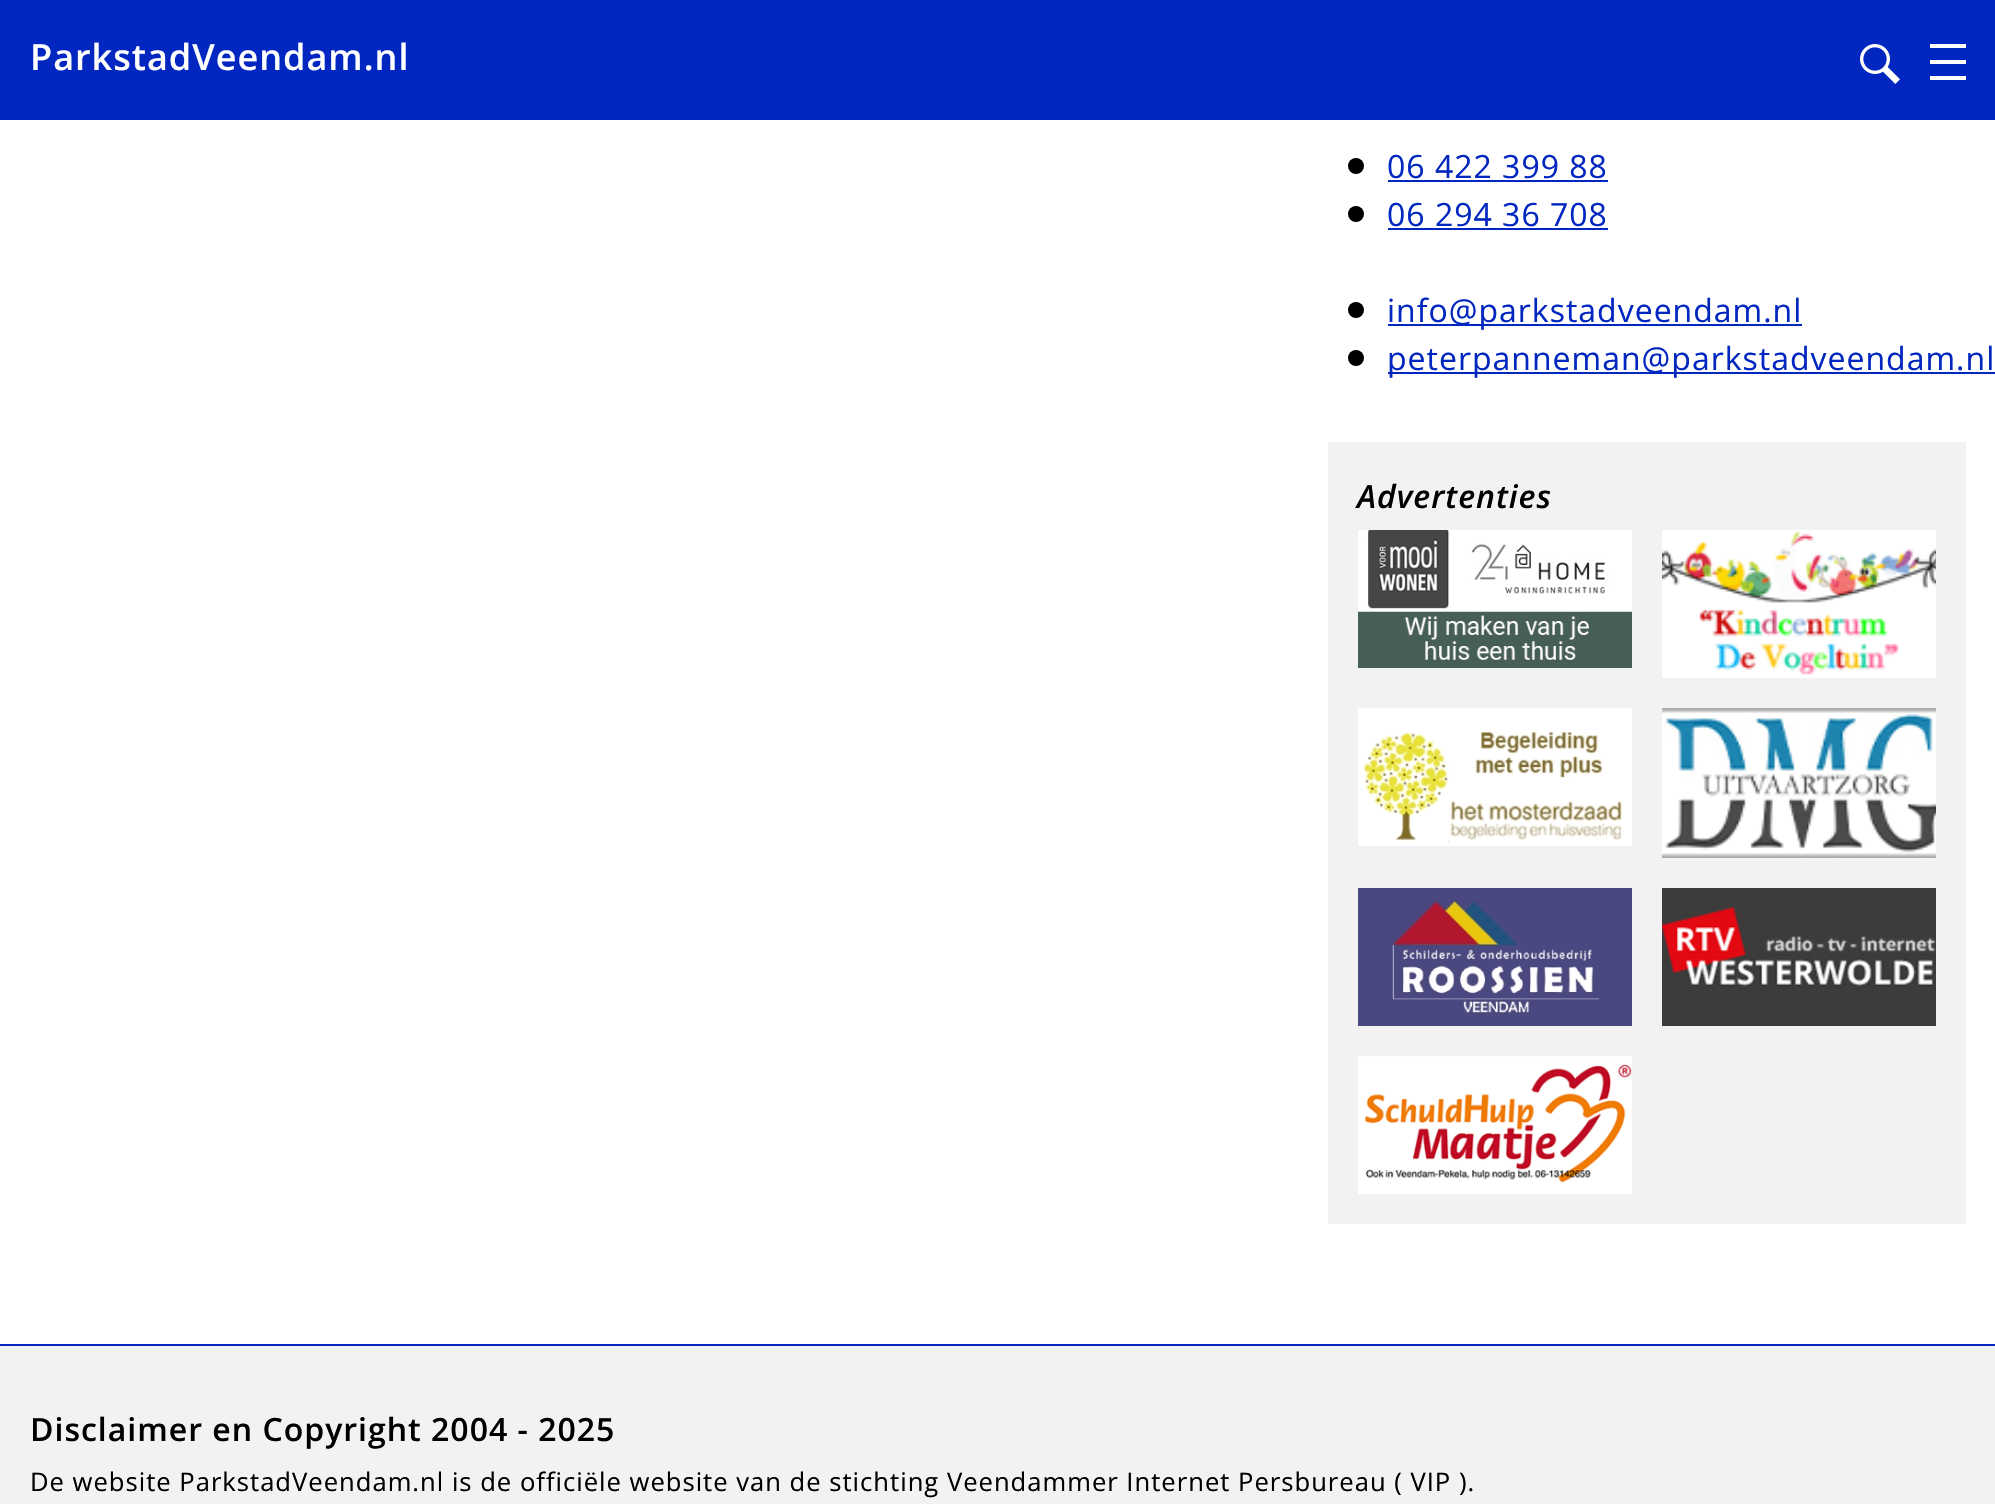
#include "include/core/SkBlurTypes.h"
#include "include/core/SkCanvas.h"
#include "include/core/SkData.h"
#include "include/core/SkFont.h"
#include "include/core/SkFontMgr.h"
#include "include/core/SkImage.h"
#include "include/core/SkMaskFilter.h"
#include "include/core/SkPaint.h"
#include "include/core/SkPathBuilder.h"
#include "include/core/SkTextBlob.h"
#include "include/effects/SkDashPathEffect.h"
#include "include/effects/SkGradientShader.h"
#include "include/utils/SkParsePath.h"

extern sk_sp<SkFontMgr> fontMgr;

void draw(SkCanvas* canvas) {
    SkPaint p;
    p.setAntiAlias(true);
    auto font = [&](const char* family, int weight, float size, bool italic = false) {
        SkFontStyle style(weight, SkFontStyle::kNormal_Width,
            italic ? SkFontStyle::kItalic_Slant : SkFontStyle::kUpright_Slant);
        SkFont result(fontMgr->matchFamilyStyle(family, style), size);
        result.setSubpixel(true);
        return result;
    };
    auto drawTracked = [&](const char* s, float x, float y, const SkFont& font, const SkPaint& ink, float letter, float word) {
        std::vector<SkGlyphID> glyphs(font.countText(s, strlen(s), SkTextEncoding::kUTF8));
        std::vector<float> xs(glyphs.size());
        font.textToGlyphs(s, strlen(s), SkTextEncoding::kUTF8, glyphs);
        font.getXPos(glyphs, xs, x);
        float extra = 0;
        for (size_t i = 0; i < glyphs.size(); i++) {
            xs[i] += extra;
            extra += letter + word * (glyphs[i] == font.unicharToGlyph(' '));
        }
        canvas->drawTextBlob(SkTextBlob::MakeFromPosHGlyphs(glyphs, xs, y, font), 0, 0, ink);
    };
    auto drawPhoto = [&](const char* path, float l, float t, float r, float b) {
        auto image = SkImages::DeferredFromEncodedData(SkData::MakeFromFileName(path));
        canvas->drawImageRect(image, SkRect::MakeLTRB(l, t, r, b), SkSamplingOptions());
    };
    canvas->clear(0xFFFFFFFF);
    p.setColor(0xFF0127C0);
    canvas->drawRect(SkRect::MakeLTRB(0, 0, 1995, 120), p);
    auto font1 = font("Open Sans", 600, 36);
    p.setColor(0xFFFFFFFF);
    drawTracked("ParkstadVeendam.nl", 30, 70, font1, p, 1, 0);
    drawPhoto("media/1.png", 1860, 44, 1900, 84);
    {
        const struct { float l, t, r, b; SkColor color; } items[] = {
            {1930, 60, 1966, 64, 0xFFFFFFFF},
            {1930, 44, 1966, 48, 0xFFFFFFFF},
            {1930, 76, 1966, 80, 0xFFFFFFFF},
        };
        for (auto [l, t, r, b, color] : items) {
            p.setColor(color);
            canvas->drawRect(SkRect::MakeLTRB(l, t, r, b), p);
        }
    }
    p.setColor(0xFF000000);
    canvas->drawCircle(1356, 166, 8, p);
    auto font2 = font("Open Sans", 400, 32);
    p.setColor(0xFF0127C0);
    drawTracked("06 422 399 88", 1387, 178, font2, p, 1, 0);
    canvas->drawRect(SkRect::MakeLTRB(1388, 180, 1608, 182), p);
    p.setColor(0xFF000000);
    canvas->drawCircle(1356, 214, 8, p);
    p.setColor(0xFF0127C0);
    drawTracked("06 294 36 708", 1387, 226, font2, p, 1, 0);
    canvas->drawRect(SkRect::MakeLTRB(1388, 228, 1608, 230), p);
    p.setColor(0xFF000000);
    canvas->drawCircle(1356, 310, 8, p);
    p.setColor(0xFF0127C0);
    canvas->drawRect(SkRect::MakeLTRB(1388, 324, 1802, 326), p);
    drawTracked("info@parkstadveendam.nl", 1387, 322, font2, p, 1, 0);
    p.setColor(0xFF000000);
    canvas->drawCircle(1356, 358, 8, p);
    p.setColor(0xFF0127C0);
    canvas->drawRect(SkRect::MakeLTRB(1388, 372, 1995, 374), p);
    drawTracked("peterpanneman@parkstadveendam.nl", 1387, 370, font2, p, 1, 0);
    p.setColor(0xFFF2F2F2);
    canvas->drawRect(SkRect::MakeLTRB(1328, 442, 1966, 1224), p);
    auto font3 = font("Open Sans", 600, 32, true);
    p.setColor(0xFF000000);
    drawTracked("Advertenties", 1357, 508, font3, p, 1, 0);
    drawPhoto("media/2.png", 1358, 530, 1632, 668);
    drawPhoto("media/3.png", 1662, 530, 1936, 678);
    drawPhoto("media/4.png", 1358, 708, 1632, 846);
    drawPhoto("media/5.png", 1662, 708, 1936, 858);
    drawPhoto("media/6.png", 1358, 888, 1632, 1026);
    drawPhoto("media/7.png", 1662, 888, 1936, 1026);
    drawPhoto("media/8.png", 1358, 1056, 1632, 1194);
    p.setColor(0xFFF2F2F2);
    canvas->drawRect(SkRect::MakeLTRB(0, 1346, 1995, 1504), p);
    p.setColor(0xFF0127C0);
    canvas->drawRect(SkRect::MakeLTRB(0, 1344, 1995, 1346), p);
    auto font4 = font("Open Sans", 600, 32);
    p.setColor(0xFF000000);
    drawTracked("Disclaimer en Copyright 2004 - 2025", 30, 1441, font4, p, 1, 0);
    auto font5 = font("Open Sans", 400, 25.6f);
    drawTracked("De website ParkstadVeendam.nl is de officiële website van de stichting Veendammer Internet Persbureau ( VIP ).", 30, 1491, font5, p, 1, 0);
}
